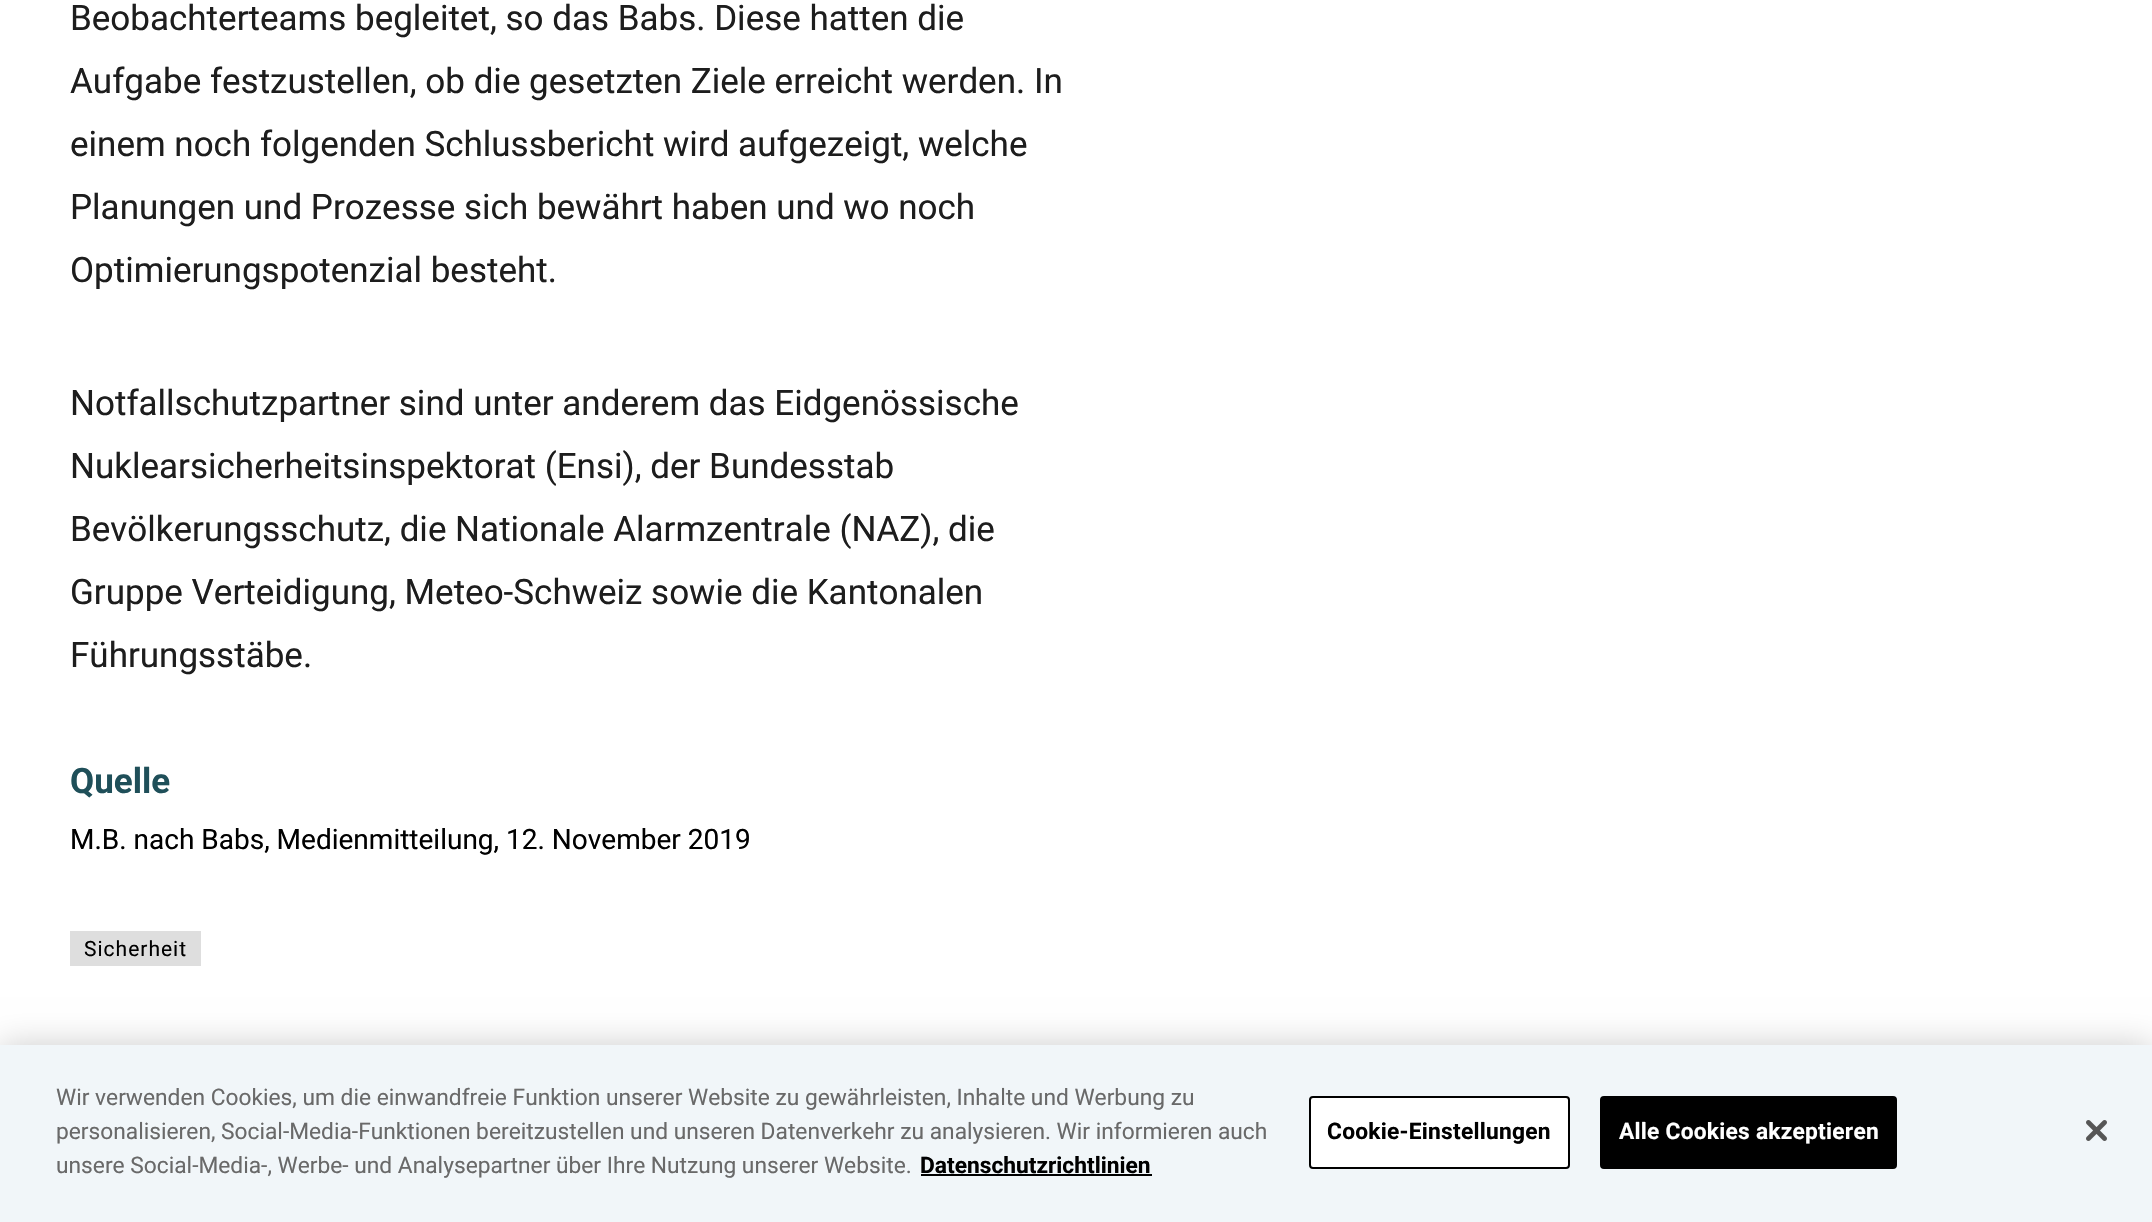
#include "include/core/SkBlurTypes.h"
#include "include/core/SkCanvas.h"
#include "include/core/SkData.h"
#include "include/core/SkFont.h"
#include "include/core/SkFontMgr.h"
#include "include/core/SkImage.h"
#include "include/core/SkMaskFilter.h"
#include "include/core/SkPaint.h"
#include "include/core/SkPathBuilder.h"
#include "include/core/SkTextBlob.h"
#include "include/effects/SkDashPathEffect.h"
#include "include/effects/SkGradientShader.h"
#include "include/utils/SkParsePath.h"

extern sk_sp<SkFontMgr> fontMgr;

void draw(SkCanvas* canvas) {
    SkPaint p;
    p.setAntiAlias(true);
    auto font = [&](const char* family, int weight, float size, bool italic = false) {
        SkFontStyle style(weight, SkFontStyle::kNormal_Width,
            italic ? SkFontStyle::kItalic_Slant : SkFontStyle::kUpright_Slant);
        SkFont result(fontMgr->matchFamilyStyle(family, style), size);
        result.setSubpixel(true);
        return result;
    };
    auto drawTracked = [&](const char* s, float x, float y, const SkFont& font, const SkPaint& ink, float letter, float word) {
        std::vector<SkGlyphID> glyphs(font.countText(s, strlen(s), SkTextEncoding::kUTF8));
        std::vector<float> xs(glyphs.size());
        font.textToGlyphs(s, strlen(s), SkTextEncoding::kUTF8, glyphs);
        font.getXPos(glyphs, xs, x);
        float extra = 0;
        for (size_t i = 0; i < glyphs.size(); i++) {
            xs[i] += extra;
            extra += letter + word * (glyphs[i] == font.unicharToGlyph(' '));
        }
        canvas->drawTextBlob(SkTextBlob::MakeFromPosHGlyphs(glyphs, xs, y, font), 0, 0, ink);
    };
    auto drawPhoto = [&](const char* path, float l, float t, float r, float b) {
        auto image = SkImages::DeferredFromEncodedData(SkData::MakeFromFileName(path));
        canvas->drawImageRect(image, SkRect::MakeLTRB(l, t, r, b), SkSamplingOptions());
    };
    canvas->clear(0xFFFFFFFF);
    auto font1 = font("Roboto", 400, 35);
    p.setColor(0xFF1D1D1D);
    {
        const struct { const char* s; float x, y; } items[] = {
            {"Beobachterteams begleitet, so das Babs. Diese hatten die", 70, 30},
            {"Aufgabe festzustellen, ob die gesetzten Ziele erreicht werden. In", 70, 93},
            {"einem noch folgenden Schlussbericht wird aufgezeigt, welche", 70, 156},
            {"Planungen und Prozesse sich bewährt haben und wo noch", 70, 219},
            {"Optimierungspotenzial besteht.", 70, 282},
            {"Notfallschutzpartner sind unter anderem das Eidgenössische", 70, 415},
            {"Nuklearsicherheitsinspektorat (Ensi), der Bundesstab", 70, 478},
            {"Bevölkerungsschutz, die Nationale Alarmzentrale (NAZ), die", 70, 541},
            {"Gruppe Verteidigung, Meteo-Schweiz sowie die Kantonalen", 70, 604},
            {"Führungsstäbe.", 70, 667},
        };
        for (auto [s, x, y] : items) {
            canvas->drawString(s, x, y, font1, p);
        }
    }
    auto font2 = font("Roboto", 700, 35);
    p.setColor(0xFF1F4F59);
    canvas->drawString("Quelle", 70, 793, font2, p);
    auto font3 = font("Roboto", 400, 28);
    p.setColor(0xFF000000);
    canvas->drawString("M.B. nach Babs, Medienmitteilung, 12. November 2019", 70, 849, font3, p);
    p.setColor(0xFFDEDEDE);
    canvas->drawRect(SkRect::MakeLTRB(70, 931, 201, 966), p);
    auto font4 = font("Roboto", 400, 21);
    p.setColor(0xFF000000);
    drawTracked("Sicherheit", 84, 956, font4, p, 1, 0);
    p.setColor(0x33000000);
    p.setMaskFilter(SkMaskFilter::MakeBlur(kNormal_SkBlurStyle, 16));
    canvas->drawRect(SkRect::MakeLTRB(0, 1045, 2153, 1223), p);
    p.setMaskFilter(nullptr);
    p.setColor(0xFFF1F6F9);
    canvas->drawRect(SkRect::MakeLTRB(0, 1045, 2152, 1222), p);
    auto font5 = font("Roboto", 400, 22.75f);
    p.setColor(0xFF696969);
    {
        const struct { const char* s; float x, y; } items[] = {
            {"Wir verwenden Cookies, um die einwandfreie Funktion unserer Website zu gewährleisten, Inhalte und Werbung zu", 56, 1105},
            {"personalisieren, Social-Media-Funktionen bereitzustellen und unseren Datenverkehr zu analysieren. Wir informieren auch", 56, 1139},
            {"unsere Social-Media-, Werbe- und Analysepartner über Ihre Nutzung unserer Website.", 56, 1173},
        };
        for (auto [s, x, y] : items) {
            canvas->drawString(s, x, y, font5, p);
        }
    }
    auto font6 = font("Roboto", 700, 22.75f);
    p.setColor(0xFF000000);
    canvas->drawString("Datenschutzrichtlinien", 920, 1173, font6, p);
    canvas->drawRect(SkRect::MakeLTRB(921, 1174, 1152, 1176), p);
    p.setColor(0xFFFFFFFF);
    canvas->drawRoundRect(SkRect::MakeLTRB(1310, 1097, 1569, 1168), 3, 3, p);
    p.setStyle(SkPaint::kStroke_Style);
    p.setStrokeWidth(2);
    p.setColor(0xFF000000);
    canvas->drawRoundRect(SkRect::MakeLTRB(1310, 1097, 1569, 1168), 3, 3, p);
    p.setStyle(SkPaint::kFill_Style);
    drawTracked("Cookie-Einstellungen", 1327, 1139, font6, p, 0.25f, 0);
    canvas->drawRoundRect(SkRect::MakeLTRB(1601, 1097, 1896, 1168), 3, 3, p);
    p.setStyle(SkPaint::kStroke_Style);
    canvas->drawRoundRect(SkRect::MakeLTRB(1601, 1097, 1896, 1168), 3, 3, p);
    p.setStyle(SkPaint::kFill_Style);
    p.setColor(0xFFFFFFFF);
    drawTracked("Alle Cookies akzeptieren", 1619, 1139, font6, p, 0.25f, 0);
    drawPhoto("media/1.png", 2086, 1120, 2107, 1141);
}
